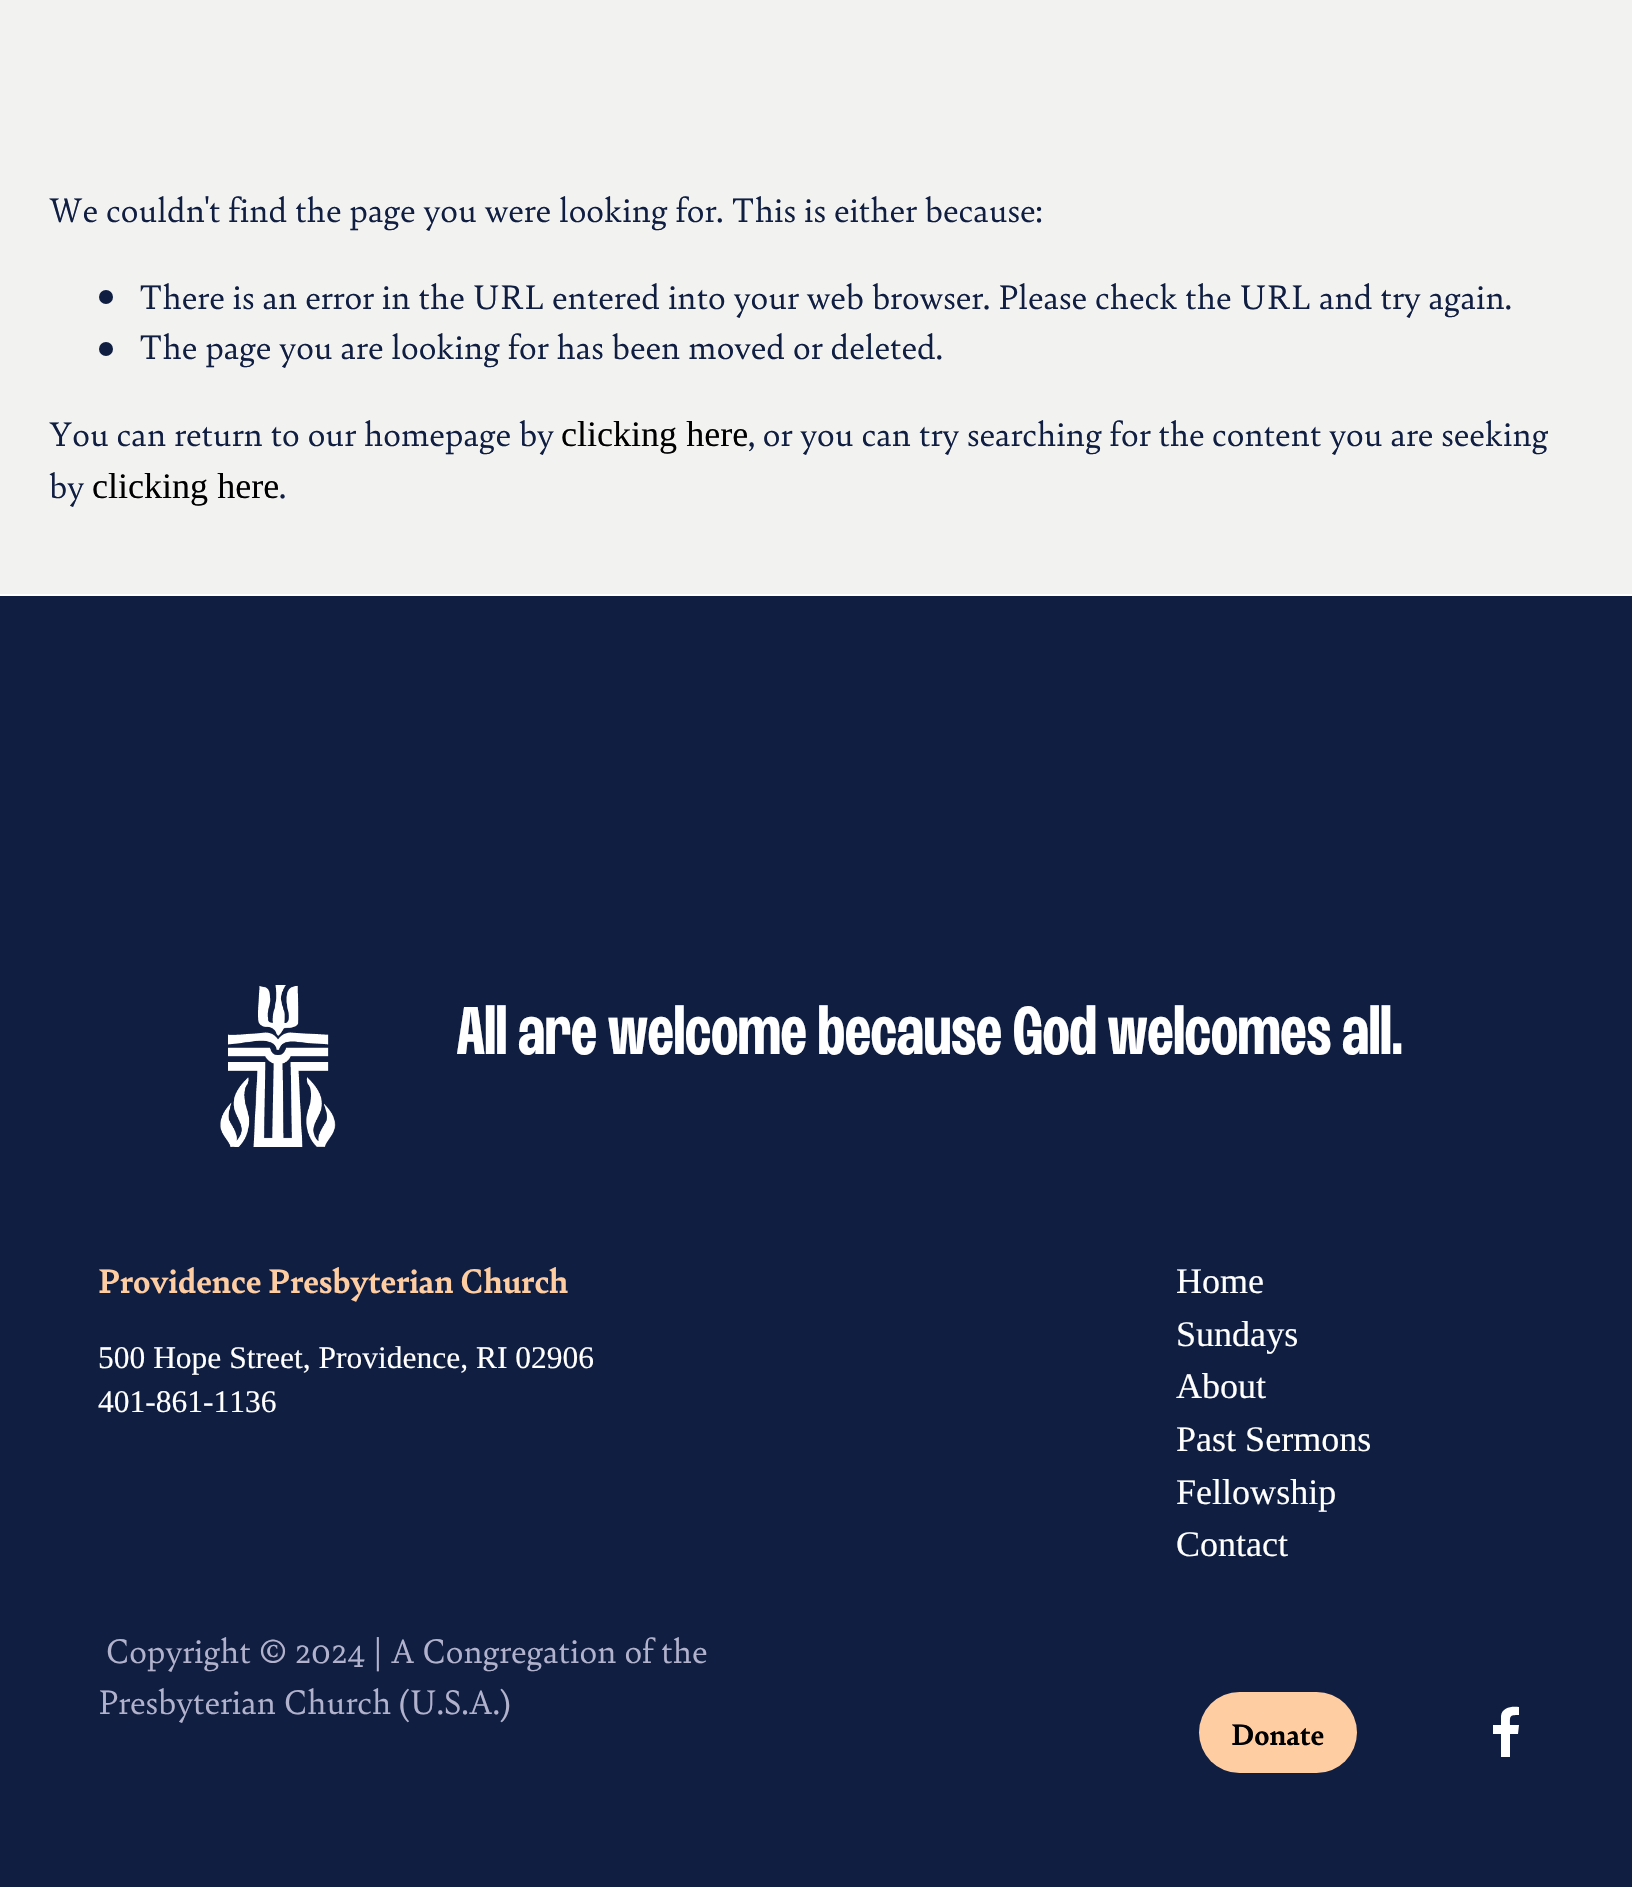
#include "include/core/SkBlurTypes.h"
#include "include/core/SkCanvas.h"
#include "include/core/SkData.h"
#include "include/core/SkFont.h"
#include "include/core/SkFontMgr.h"
#include "include/core/SkImage.h"
#include "include/core/SkMaskFilter.h"
#include "include/core/SkPaint.h"
#include "include/core/SkPathBuilder.h"
#include "include/core/SkTextBlob.h"
#include "include/effects/SkDashPathEffect.h"
#include "include/effects/SkGradientShader.h"
#include "include/utils/SkParsePath.h"

extern sk_sp<SkFontMgr> fontMgr;

void draw(SkCanvas* canvas) {
    SkPaint p;
    p.setAntiAlias(true);
    auto font = [&](const char* family, int weight, float size, bool italic = false) {
        SkFontStyle style(weight, SkFontStyle::kNormal_Width,
            italic ? SkFontStyle::kItalic_Slant : SkFontStyle::kUpright_Slant);
        SkFont result(fontMgr->matchFamilyStyle(family, style), size);
        result.setSubpixel(true);
        return result;
    };
    auto drawPhoto = [&](const char* path, float l, float t, float r, float b) {
        auto image = SkImages::DeferredFromEncodedData(SkData::MakeFromFileName(path));
        canvas->drawImageRect(image, SkRect::MakeLTRB(l, t, r, b), SkSamplingOptions());
    };
    canvas->clear(0xFFF2F2F0);
    auto font1 = font("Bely", 400, 36.05f);
    p.setColor(0xFF101E42);
    canvas->drawString("We couldn't find the page you were looking for. This is either because:", 49, 222, font1, p);
    canvas->drawCircle(106, 297, 7, p);
    canvas->drawString("There is an error in the URL entered into your web browser. Please check the URL and try again.", 139, 309, font1, p);
    canvas->drawCircle(106, 349, 7, p);
    canvas->drawString("The page you are looking for has been moved or deleted.", 139, 359, font1, p);
    canvas->drawString("You can return to our homepage by", 49, 446, font1, p);
    auto font2 = font("Liberation Serif", 400, 36.05f);
    p.setColor(0xFF000000);
    canvas->drawString("clicking here", 561, 446, font2, p);
    p.setColor(0xFF101E42);
    {
        const struct { const char* s; float x, y; } items[] = {
            {", or you can try searching for the", 748, 446},
            {"content you are seeking", 1212, 446},
            {"by", 49, 498},
        };
        for (auto [s, x, y] : items) {
            canvas->drawString(s, x, y, font1, p);
        }
    }
    p.setColor(0xFF000000);
    canvas->drawString("clicking here", 92, 498, font2, p);
    p.setColor(0xFF101E42);
    canvas->drawString(".", 279, 498, font1, p);
    p.setColor(0xFFFFFFFF);
    canvas->drawRect(SkRect::MakeLTRB(0, 594, 1632, 596), p);
    p.setColor(0xFF101E42);
    canvas->drawRect(SkRect::MakeLTRB(0, 596, 1632, 1887), p);
    drawPhoto("media/1.png", 220, 985, 336, 1147);
    auto font3 = font("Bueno", 600, 65.9f);
    p.setColor(0xFFFFFFFF);
    canvas->drawString("All are welcome because God welcomes all.", 457, 1054, font3, p);
    auto font4 = font("Bely", 700, 36.05f);
    p.setColor(0xFFFFCDA2);
    canvas->drawString("Providence Presbyterian Church", 98, 1293, font4, p);
    auto font5 = font("Liberation Serif", 400, 31.5f);
    p.setColor(0xFFFFFFFF);
    canvas->drawString("500 Hope Street, Providence, RI 02906", 98, 1368, font5, p);
    canvas->drawString("401-861-1136", 98, 1412, font5, p);
    {
        const struct { const char* s; float x, y; } items[] = {
            {"Home", 1176, 1293},
            {"Sundays", 1176, 1346},
            {"About", 1176, 1398},
            {"Past Sermons", 1176, 1451},
            {"Fellowship", 1176, 1504},
            {"Contact", 1176, 1556},
        };
        for (auto [s, x, y] : items) {
            canvas->drawString(s, x, y, font2, p);
        }
    }
    p.setColor(0xFFB2B2CC);
    canvas->drawString("Copyright © 2024 | A Congregation of the", 106, 1663, font1, p);
    canvas->drawString("Presbyterian Church (U.S.A.)", 98, 1714, font1, p);
    p.setColor(0xFFFFCDA2);
    canvas->drawRoundRect(SkRect::MakeLTRB(1199, 1692, 1357, 1773), 40.5f, 40.5f, p);
    auto font6 = font("Bely", 700, 31.5f);
    p.setColor(0xFF000000);
    canvas->drawString("Donate", 1231, 1745, font6, p);
    p.setColor(0xFFFFFFFF);
    canvas->drawPath(SkPathBuilder().moveTo(1510, 1757).lineTo(1510, 1734).lineTo(1518, 1734).lineTo(1519, 1725).lineTo(1510, 1725).cubicTo(1510, 1716, 1509, 1715, 1519, 1715).lineTo(1519, 1707).cubicTo(1512, 1706, 1502, 1707, 1501, 1716).lineTo(1501, 1725).lineTo(1493, 1725).lineTo(1493, 1734).lineTo(1501, 1734).lineTo(1501, 1757).close().detach(), p);
}
